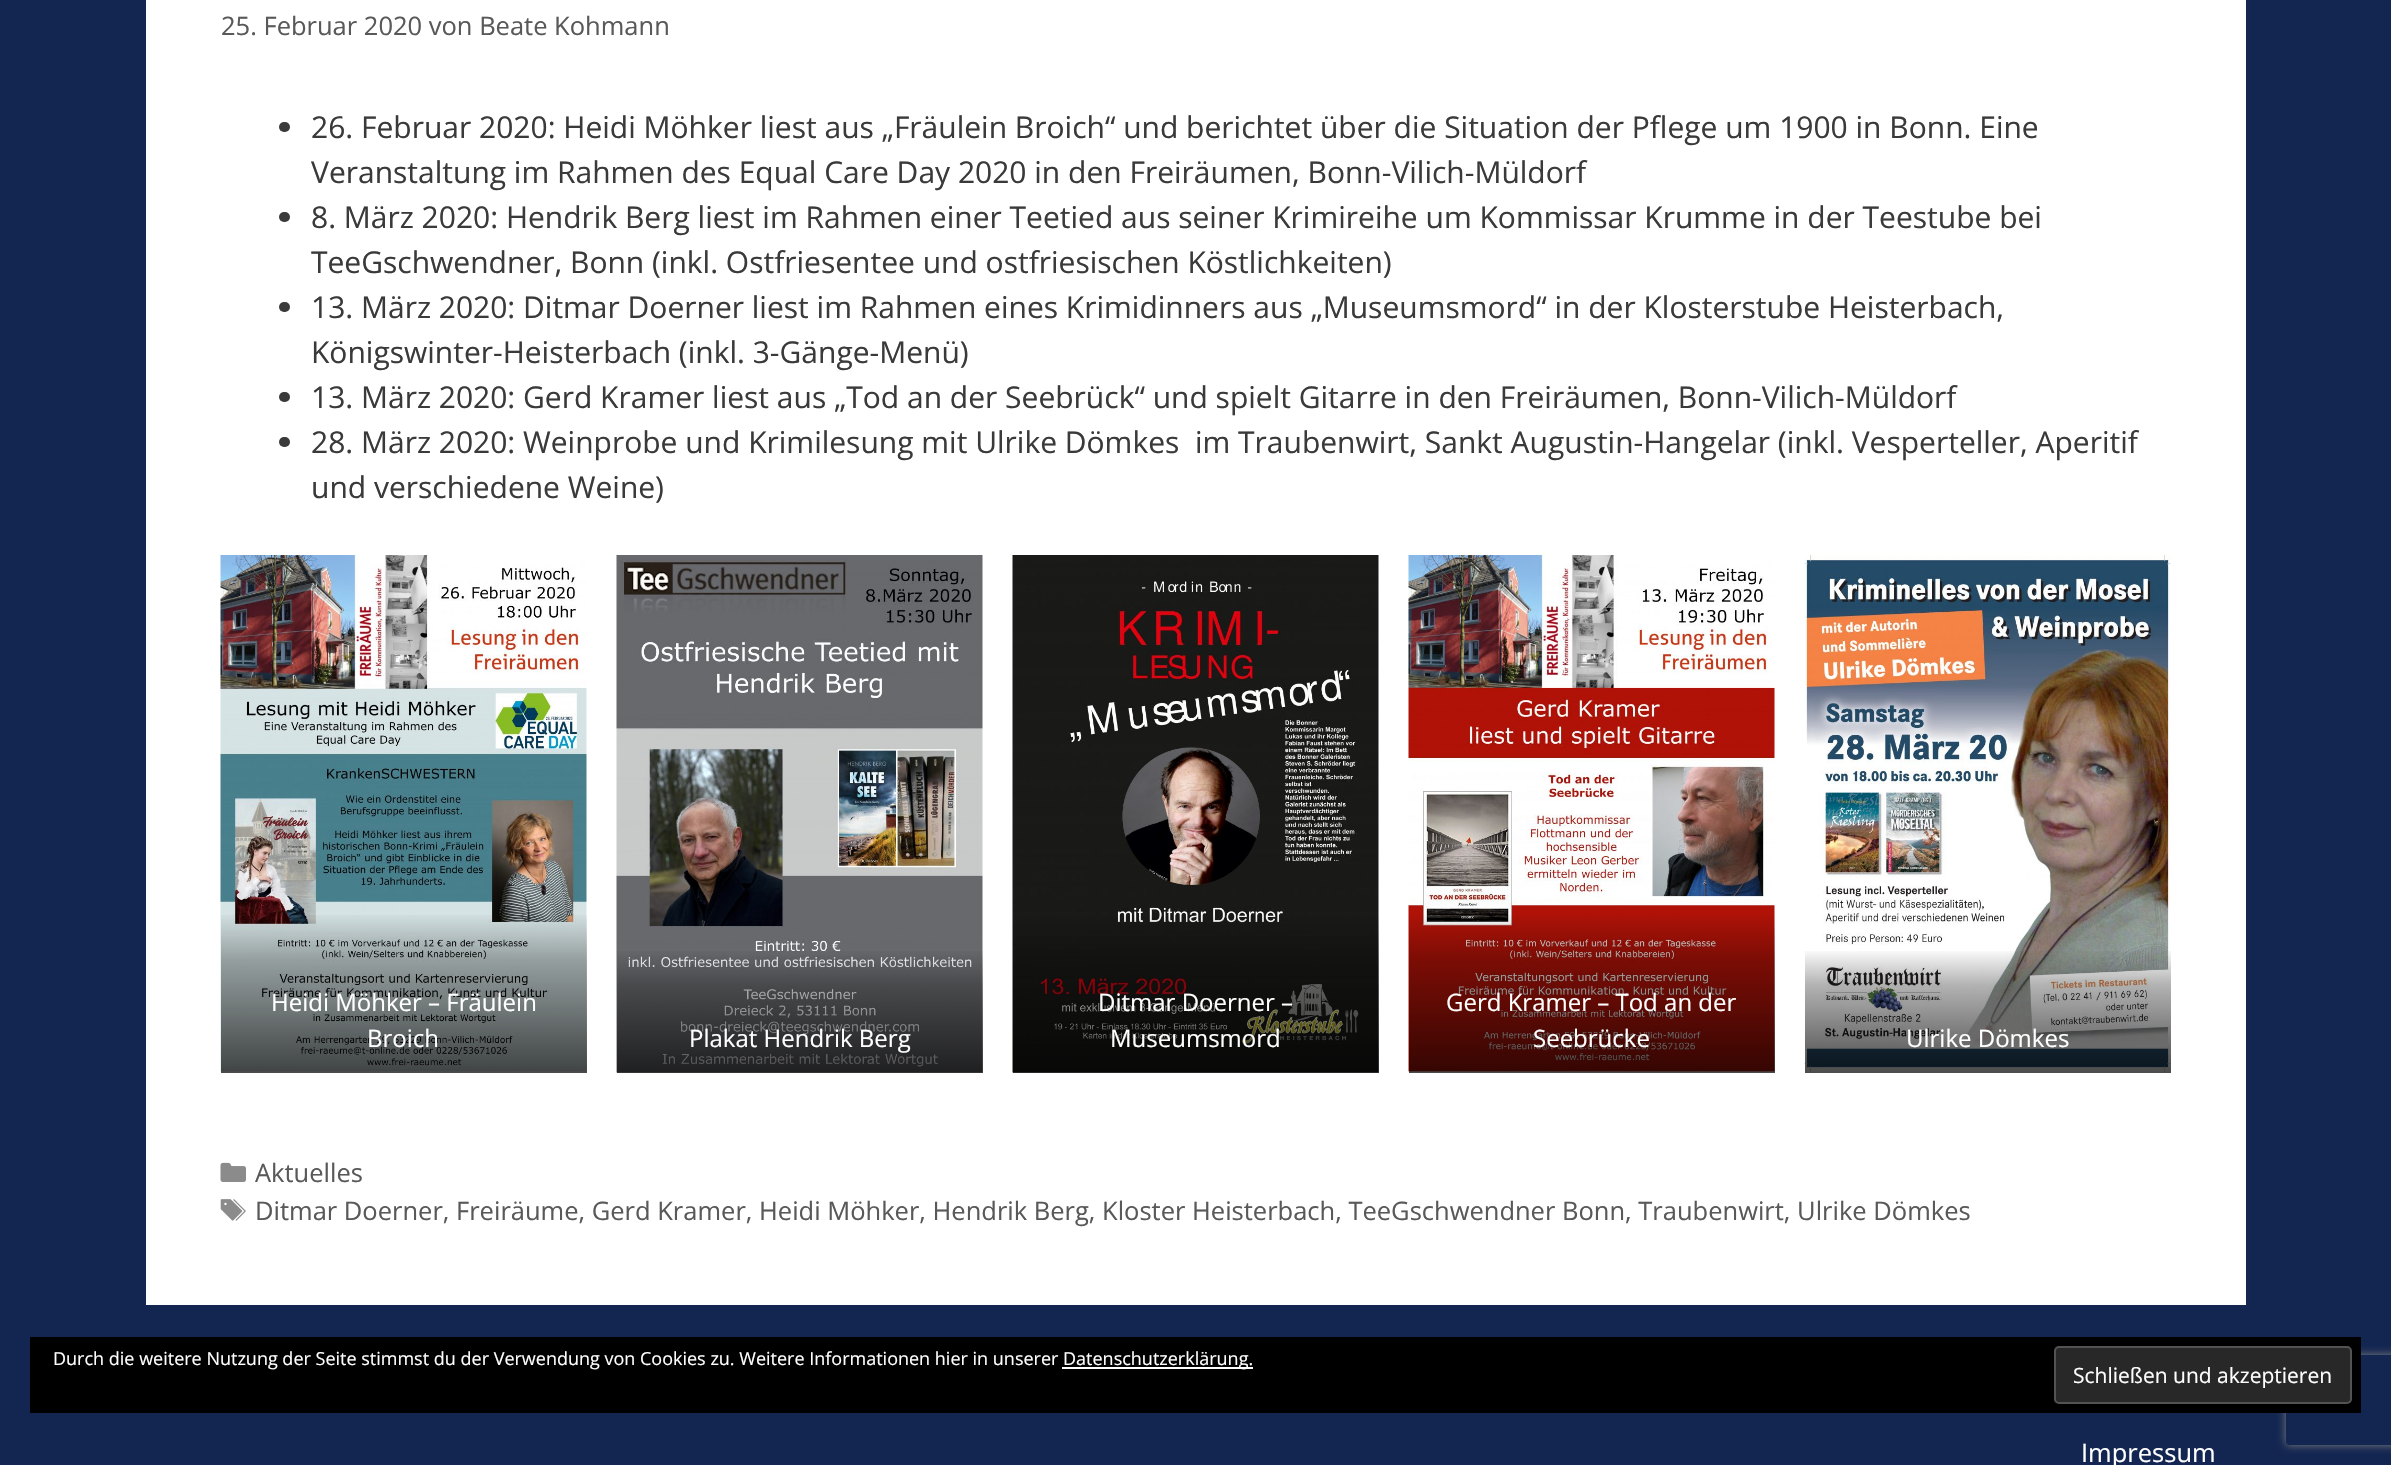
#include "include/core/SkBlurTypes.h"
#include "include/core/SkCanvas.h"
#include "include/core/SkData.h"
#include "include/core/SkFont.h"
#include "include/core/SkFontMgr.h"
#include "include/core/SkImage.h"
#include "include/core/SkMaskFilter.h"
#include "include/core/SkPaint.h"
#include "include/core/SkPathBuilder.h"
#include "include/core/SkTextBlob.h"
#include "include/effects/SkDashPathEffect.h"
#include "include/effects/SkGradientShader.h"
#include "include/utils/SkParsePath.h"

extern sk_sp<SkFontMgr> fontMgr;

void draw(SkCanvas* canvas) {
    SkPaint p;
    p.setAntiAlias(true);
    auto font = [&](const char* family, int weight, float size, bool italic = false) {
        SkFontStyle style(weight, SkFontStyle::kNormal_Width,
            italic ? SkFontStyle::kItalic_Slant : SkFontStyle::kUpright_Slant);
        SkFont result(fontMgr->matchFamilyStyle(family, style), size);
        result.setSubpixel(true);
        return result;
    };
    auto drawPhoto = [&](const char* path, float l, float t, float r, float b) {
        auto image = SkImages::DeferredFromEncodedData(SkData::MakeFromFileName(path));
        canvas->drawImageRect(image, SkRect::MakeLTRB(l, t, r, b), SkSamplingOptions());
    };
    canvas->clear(0xFF132651);
    p.setColor(0xFFFFFFFF);
    canvas->drawRect(SkRect::MakeLTRB(146, 0, 2246, 1305), p);
    auto font1 = font("Open Sans", 400, 25.5f);
    p.setColor(0xFF595959);
    canvas->drawString("25. Februar 2020 von Beate Kohmann", 221, 35, font1, p);
    p.setColor(0xFF3A3A3A);
    canvas->drawRoundRect(SkRect::MakeLTRB(279, 122, 290, 132), 5, 5, p);
    auto font2 = font("Open Sans", 400, 30);
    canvas->drawString("26. Februar 2020: Heidi Möhker liest aus „Fräulein Broich“ und berichtet über die Situation der Pflege um 1900 in Bonn. Eine", 311, 138, font2, p);
    canvas->drawString("Veranstaltung im Rahmen des Equal Care Day 2020 in den Freiräumen, Bonn-Vilich-Müldorf", 311, 183, font2, p);
    canvas->drawRoundRect(SkRect::MakeLTRB(279, 212, 290, 222), 5, 5, p);
    canvas->drawString("8. März 2020: Hendrik Berg liest im Rahmen einer Teetied aus seiner Krimireihe um Kommissar Krumme in der Teestube bei", 311, 228, font2, p);
    canvas->drawString("TeeGschwendner, Bonn (inkl. Ostfriesentee und ostfriesischen Köstlichkeiten)", 311, 273, font2, p);
    canvas->drawRoundRect(SkRect::MakeLTRB(279, 302, 290, 312), 5, 5, p);
    canvas->drawString("13. März 2020: Ditmar Doerner liest im Rahmen eines Krimidinners aus „Museumsmord“ in der Klosterstube Heisterbach,", 311, 318, font2, p);
    canvas->drawString("Königswinter-Heisterbach (inkl. 3-Gänge-Menü)", 311, 363, font2, p);
    canvas->drawRoundRect(SkRect::MakeLTRB(279, 392, 290, 402), 5, 5, p);
    canvas->drawString("13. März 2020: Gerd Kramer liest aus „Tod an der Seebrück“ und spielt Gitarre in den Freiräumen, Bonn-Vilich-Müldorf", 311, 408, font2, p);
    canvas->drawRoundRect(SkRect::MakeLTRB(279, 437, 290, 447), 5, 5, p);
    canvas->drawString("28. März 2020: Weinprobe und Krimilesung mit Ulrike Dömkes  im Traubenwirt, Sankt Augustin-Hangelar (inkl. Vesperteller, Aperitif", 311, 453, font2, p);
    canvas->drawString("und verschiedene Weine)", 311, 498, font2, p);
    drawPhoto("media/1.png", 220, 555, 587, 1072);
    {
        const SkColor colors[] = {0xB3000000, 0x4D000000, 0x00000000};
        const float stops[] = {0, 0.7f, 1};
        const SkPoint ends[] = {{404, 1073}, {404, 912}};
        p.setShader(SkGradientShader::MakeLinear(ends, colors, stops, 3, SkTileMode::kClamp));
        p.setAlpha(255);
    }
    canvas->drawRect(SkRect::MakeLTRB(221, 915, 587, 1073), p);
    auto font3 = font("Open Sans", 400, 24);
    p.setShader(nullptr);
    p.setColor(0xFFFFFFFF);
    canvas->drawString("Heidi Möhker – Fräulein", 271, 1011, font3, p);
    canvas->drawString("Broich", 367, 1047, font3, p);
    drawPhoto("media/2.png", 616, 555, 983, 1073);
    {
        const SkColor colors[] = {0xB3000000, 0x4D000000, 0x00000000};
        const float stops[] = {0, 0.7f, 1};
        const SkPoint ends[] = {{800, 1073}, {800, 948}};
        p.setShader(SkGradientShader::MakeLinear(ends, colors, stops, 3, SkTileMode::kClamp));
        p.setAlpha(255);
    }
    canvas->drawRect(SkRect::MakeLTRB(617, 951, 983, 1073), p);
    p.setShader(nullptr);
    p.setColor(0xFFFFFFFF);
    canvas->drawString("Plakat Hendrik Berg", 689, 1047, font3, p);
    drawPhoto("media/3.png", 1012, 555, 1379, 1073);
    {
        const SkColor colors[] = {0xB3000000, 0x4D000000, 0x00000000};
        const float stops[] = {0, 0.7f, 1};
        const SkPoint ends[] = {{1196, 1073}, {1196, 912}};
        p.setShader(SkGradientShader::MakeLinear(ends, colors, stops, 3, SkTileMode::kClamp));
        p.setAlpha(255);
    }
    canvas->drawRect(SkRect::MakeLTRB(1013, 915, 1379, 1073), p);
    p.setShader(nullptr);
    p.setColor(0xFFFFFFFF);
    canvas->drawString("Ditmar Doerner –", 1098, 1011, font3, p);
    canvas->drawString("Museumsmord", 1110, 1047, font3, p);
    drawPhoto("media/4.png", 1408, 555, 1775, 1073);
    {
        const SkColor colors[] = {0xB3000000, 0x4D000000, 0x00000000};
        const float stops[] = {0, 0.7f, 1};
        const SkPoint ends[] = {{1592, 1073}, {1592, 912}};
        p.setShader(SkGradientShader::MakeLinear(ends, colors, stops, 3, SkTileMode::kClamp));
        p.setAlpha(255);
    }
    canvas->drawRect(SkRect::MakeLTRB(1409, 915, 1775, 1073), p);
    p.setShader(nullptr);
    p.setColor(0xFFFFFFFF);
    canvas->drawString("Gerd Kramer – Tod an der", 1446, 1011, font3, p);
    canvas->drawString("Seebrücke", 1533, 1047, font3, p);
    drawPhoto("media/5.png", 1804, 555, 2171, 1073);
    {
        const SkColor colors[] = {0xB3000000, 0x4D000000, 0x00000000};
        const float stops[] = {0, 0.7f, 1};
        const SkPoint ends[] = {{1988, 1073}, {1988, 948}};
        p.setShader(SkGradientShader::MakeLinear(ends, colors, stops, 3, SkTileMode::kClamp));
        p.setAlpha(255);
    }
    canvas->drawRect(SkRect::MakeLTRB(1805, 951, 2171, 1073), p);
    p.setShader(nullptr);
    p.setColor(0xFFFFFFFF);
    canvas->drawString("Ulrike Dömkes", 1906, 1047, font3, p);
    drawPhoto("media/6.png", 220, 1162, 246, 1182);
    p.setColor(0xFF595959);
    canvas->drawString("Aktuelles", 255, 1182, font1, p);
    drawPhoto("media/7.png", 220, 1199, 246, 1221);
    canvas->drawString("Ditmar Doerner, Freiräume, Gerd Kramer, Heidi Möhker, Hendrik Berg, Kloster Heisterbach, TeeGschwendner Bonn, Traubenwirt, Ulrike Dömkes", 255, 1220, font1, p);
    canvas->save();
    canvas->clipPath(SkPathBuilder(SkPathFillType::kEvenOdd).moveTo(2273, 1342).lineTo(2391, 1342).lineTo(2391, 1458).lineTo(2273, 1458).close().moveTo(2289, 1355).lineTo(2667, 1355).cubicTo(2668.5f, 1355, 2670, 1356.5f, 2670, 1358).lineTo(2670, 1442).cubicTo(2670, 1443.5f, 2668.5f, 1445, 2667, 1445).lineTo(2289, 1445).cubicTo(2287.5f, 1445, 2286, 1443.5f, 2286, 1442).lineTo(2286, 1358).cubicTo(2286, 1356.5f, 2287.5f, 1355, 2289, 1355).close().detach(), true);
    p.setColor(0xFF808080);
    p.setMaskFilter(SkMaskFilter::MakeBlur(kNormal_SkBlurStyle, 4));
    canvas->drawRoundRect(SkRect::MakeLTRB(2286, 1355, 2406, 1445), 3, 3, p);
    p.setMaskFilter(nullptr);
    canvas->restore();
    p.setColor(0xFF000000);
    canvas->drawRect(SkRect::MakeLTRB(30, 1337, 2361, 1413), p);
    auto font4 = font("Open Sans", 400, 18);
    p.setColor(0xFFFFFFFF);
    canvas->drawString("Durch die weitere Nutzung der Seite stimmst du der Verwendung von Cookies zu. Weitere Informationen hier in unserer", 53, 1365, font4, p);
    canvas->drawRect(SkRect::MakeLTRB(1062, 1367, 1253, 1369), p);
    canvas->drawString("Datenschutzerklärung.", 1063, 1365, font4, p);
    p.setColor(0xFF282828);
    canvas->drawRoundRect(SkRect::MakeLTRB(2055, 1347, 2351, 1403), 4, 4, p);
    p.setStyle(SkPaint::kStroke_Style);
    p.setStrokeWidth(2);
    p.setColor(0xFF535353);
    canvas->drawRoundRect(SkRect::MakeLTRB(2055, 1347, 2351, 1403), 4, 4, p);
    auto font5 = font("Open Sans", 400, 21);
    p.setStyle(SkPaint::kFill_Style);
    p.setColor(0xFFFFFFFF);
    canvas->drawString("Schließen und akzeptieren", 2073, 1383, font5, p);
    canvas->drawString("Impressum", 2081, 1462, font1, p);
}
